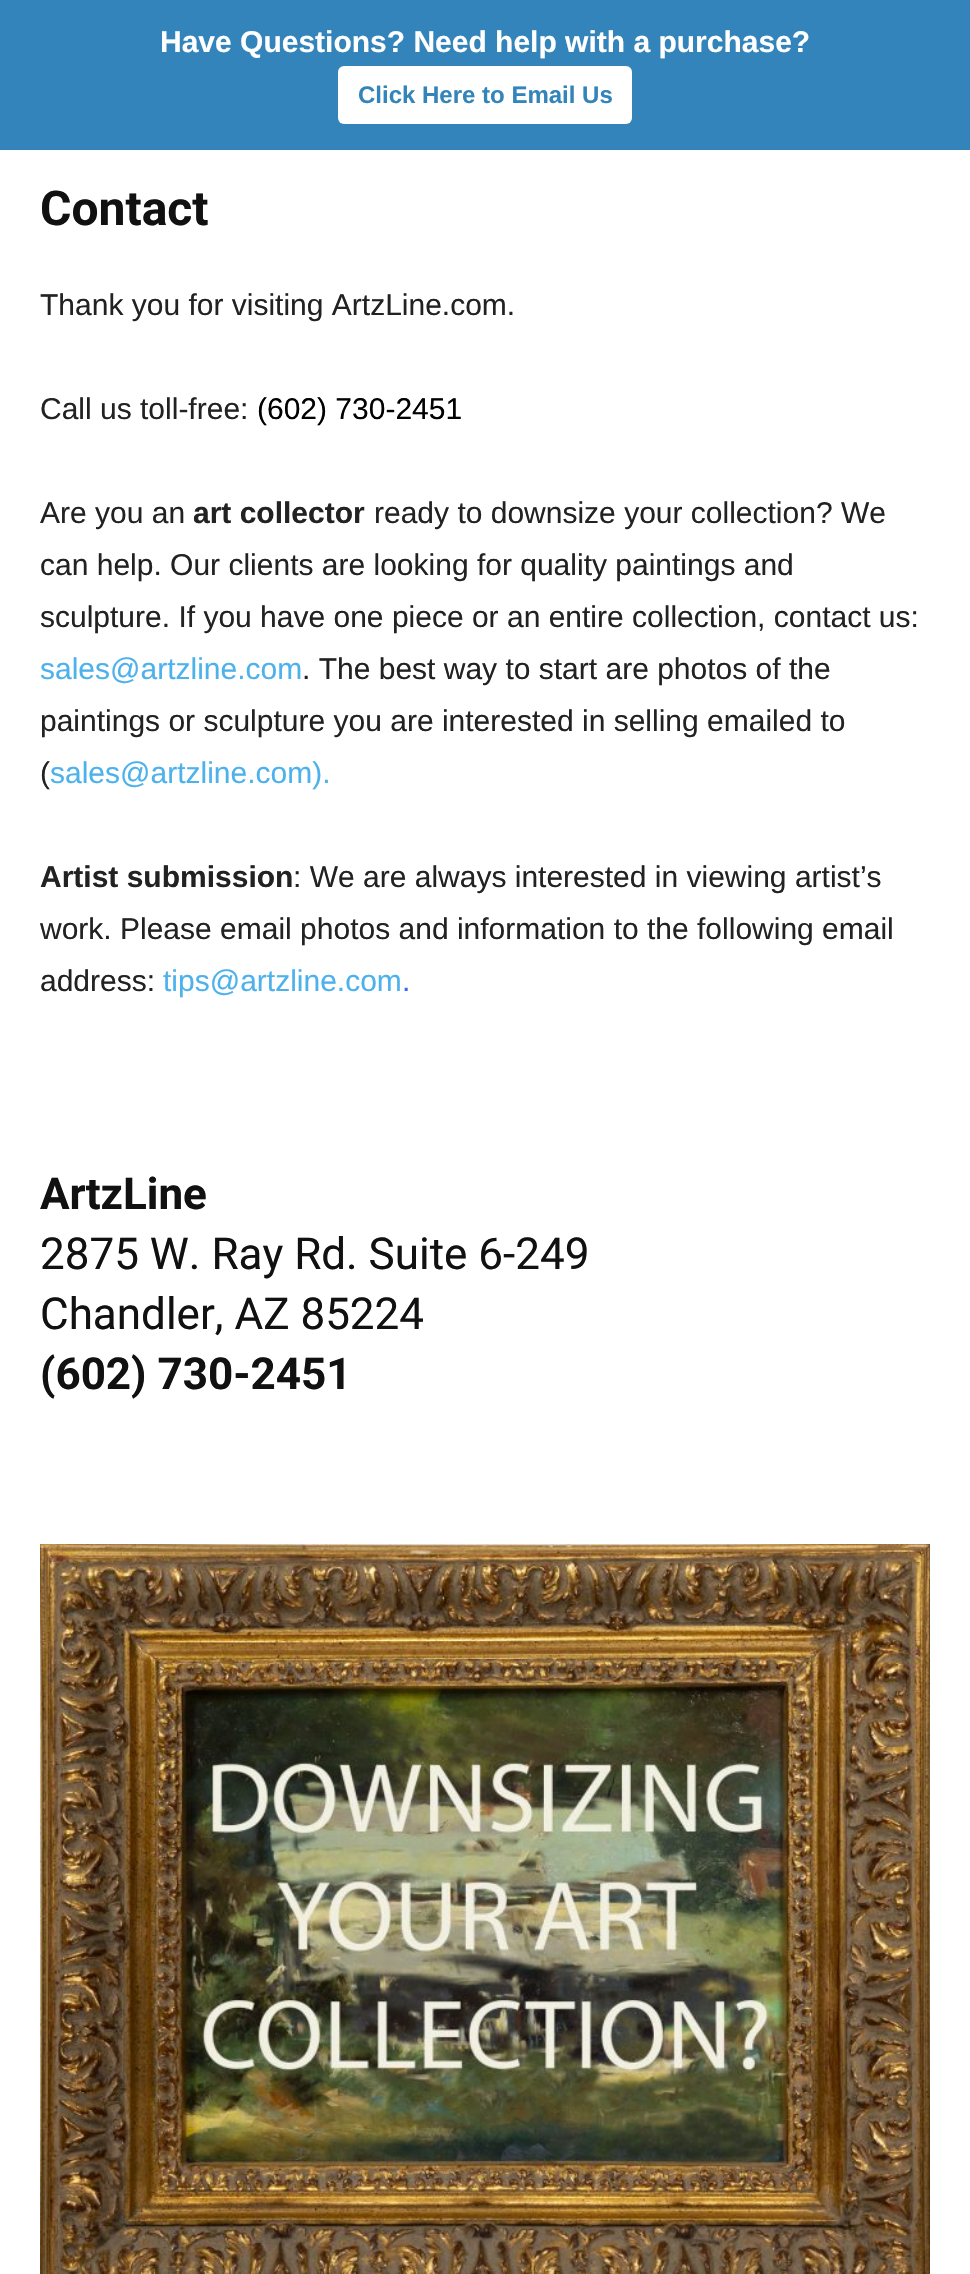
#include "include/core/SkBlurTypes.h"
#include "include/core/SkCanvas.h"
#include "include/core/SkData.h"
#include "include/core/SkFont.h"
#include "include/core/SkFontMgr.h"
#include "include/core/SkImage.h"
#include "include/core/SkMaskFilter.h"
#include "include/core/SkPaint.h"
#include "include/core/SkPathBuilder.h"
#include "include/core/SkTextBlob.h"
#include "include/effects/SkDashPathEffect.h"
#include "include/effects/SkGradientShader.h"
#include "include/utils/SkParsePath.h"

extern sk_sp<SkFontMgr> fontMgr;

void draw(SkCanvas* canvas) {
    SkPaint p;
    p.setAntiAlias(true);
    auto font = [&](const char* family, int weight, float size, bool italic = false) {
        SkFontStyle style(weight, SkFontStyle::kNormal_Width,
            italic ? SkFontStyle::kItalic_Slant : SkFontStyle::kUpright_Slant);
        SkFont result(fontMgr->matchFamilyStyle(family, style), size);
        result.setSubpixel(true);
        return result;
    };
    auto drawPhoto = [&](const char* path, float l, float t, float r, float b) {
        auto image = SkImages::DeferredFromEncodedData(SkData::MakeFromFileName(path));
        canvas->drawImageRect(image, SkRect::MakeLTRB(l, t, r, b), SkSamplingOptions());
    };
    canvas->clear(0xFFFFFFFF);
    p.setColor(0xFF3384BA);
    canvas->drawRect(SkRect::MakeLTRB(0, 0, 970, 150), p);
    auto font1 = font("Liberation Sans", 700, 30);
    p.setColor(0xFFFFFFFF);
    canvas->drawString("Have Questions? Need help with a purchase?", 160, 52, font1, p);
    canvas->drawRoundRect(SkRect::MakeLTRB(338, 66, 632, 124), 6, 6, p);
    auto font2 = font("Liberation Sans", 700, 24);
    p.setColor(0xFF3384BA);
    canvas->drawString("Click Here to Email Us", 358, 103, font2, p);
    auto font3 = font("Roboto", 700, 48);
    p.setColor(0xFF111111);
    canvas->drawString("Contact", 40, 225, font3, p);
    auto font4 = font("Liberation Sans", 400, 30);
    p.setColor(0xFF222222);
    canvas->drawString("Thank you for visiting ArtzLine.com.", 40, 315, font4, p);
    canvas->drawString("Call us toll-free:", 40, 419, font4, p);
    p.setColor(0xFF000000);
    canvas->drawString("(602) 730-2451", 257, 419, font4, p);
    p.setColor(0xFF222222);
    canvas->drawString("Are you an", 40, 523, font4, p);
    canvas->drawString("art collector", 193, 523, font1, p);
    {
        const struct { const char* s; float x, y; } items[] = {
            {"ready to downsize your collection? We", 374, 523},
            {"can help. Our clients are looking for quality paintings and", 40, 575},
            {"sculpture. If you have one piece or an entire collection, contact us:", 40, 627},
        };
        for (auto [s, x, y] : items) {
            canvas->drawString(s, x, y, font4, p);
        }
    }
    p.setColor(0xFF4DB2EC);
    canvas->drawString("sales@artzline.com", 40, 679, font4, p);
    p.setColor(0xFF222222);
    {
        const struct { const char* s; float x, y; } items[] = {
            {". The best way to start are photos of the", 302, 679},
            {"paintings or sculpture you are interested in selling emailed to", 40, 731},
            {"(", 40, 783},
        };
        for (auto [s, x, y] : items) {
            canvas->drawString(s, x, y, font4, p);
        }
    }
    p.setColor(0xFF4DB2EC);
    canvas->drawString("sales@artzline.com).", 50, 783, font4, p);
    p.setColor(0xFF222222);
    canvas->drawString("Artist submission", 40, 887, font1, p);
    {
        const struct { const char* s; float x, y; } items[] = {
            {": We are always interested in viewing artist’s", 293, 887},
            {"work. Please email photos and information to the following email", 40, 939},
            {"address:", 40, 991},
        };
        for (auto [s, x, y] : items) {
            canvas->drawString(s, x, y, font4, p);
        }
    }
    p.setColor(0xFF4DB2EC);
    canvas->drawString("tips@artzline.com", 163, 991, font4, p);
    p.setColor(0xFF3366FF);
    canvas->drawString(".", 402, 991, font4, p);
    auto font5 = font("Roboto", 700, 44);
    p.setColor(0xFF111111);
    canvas->drawString("ArtzLine", 40, 1209, font5, p);
    auto font6 = font("Roboto", 400, 44);
    canvas->drawString("2875 W. Ray Rd. Suite 6-249", 40, 1269, font6, p);
    canvas->drawString("Chandler, AZ 85224", 40, 1329, font6, p);
    canvas->drawString("(602) 730-2451", 40, 1389, font5, p);
    drawPhoto("media/1.png", 40, 1544, 930, 2274);
}
